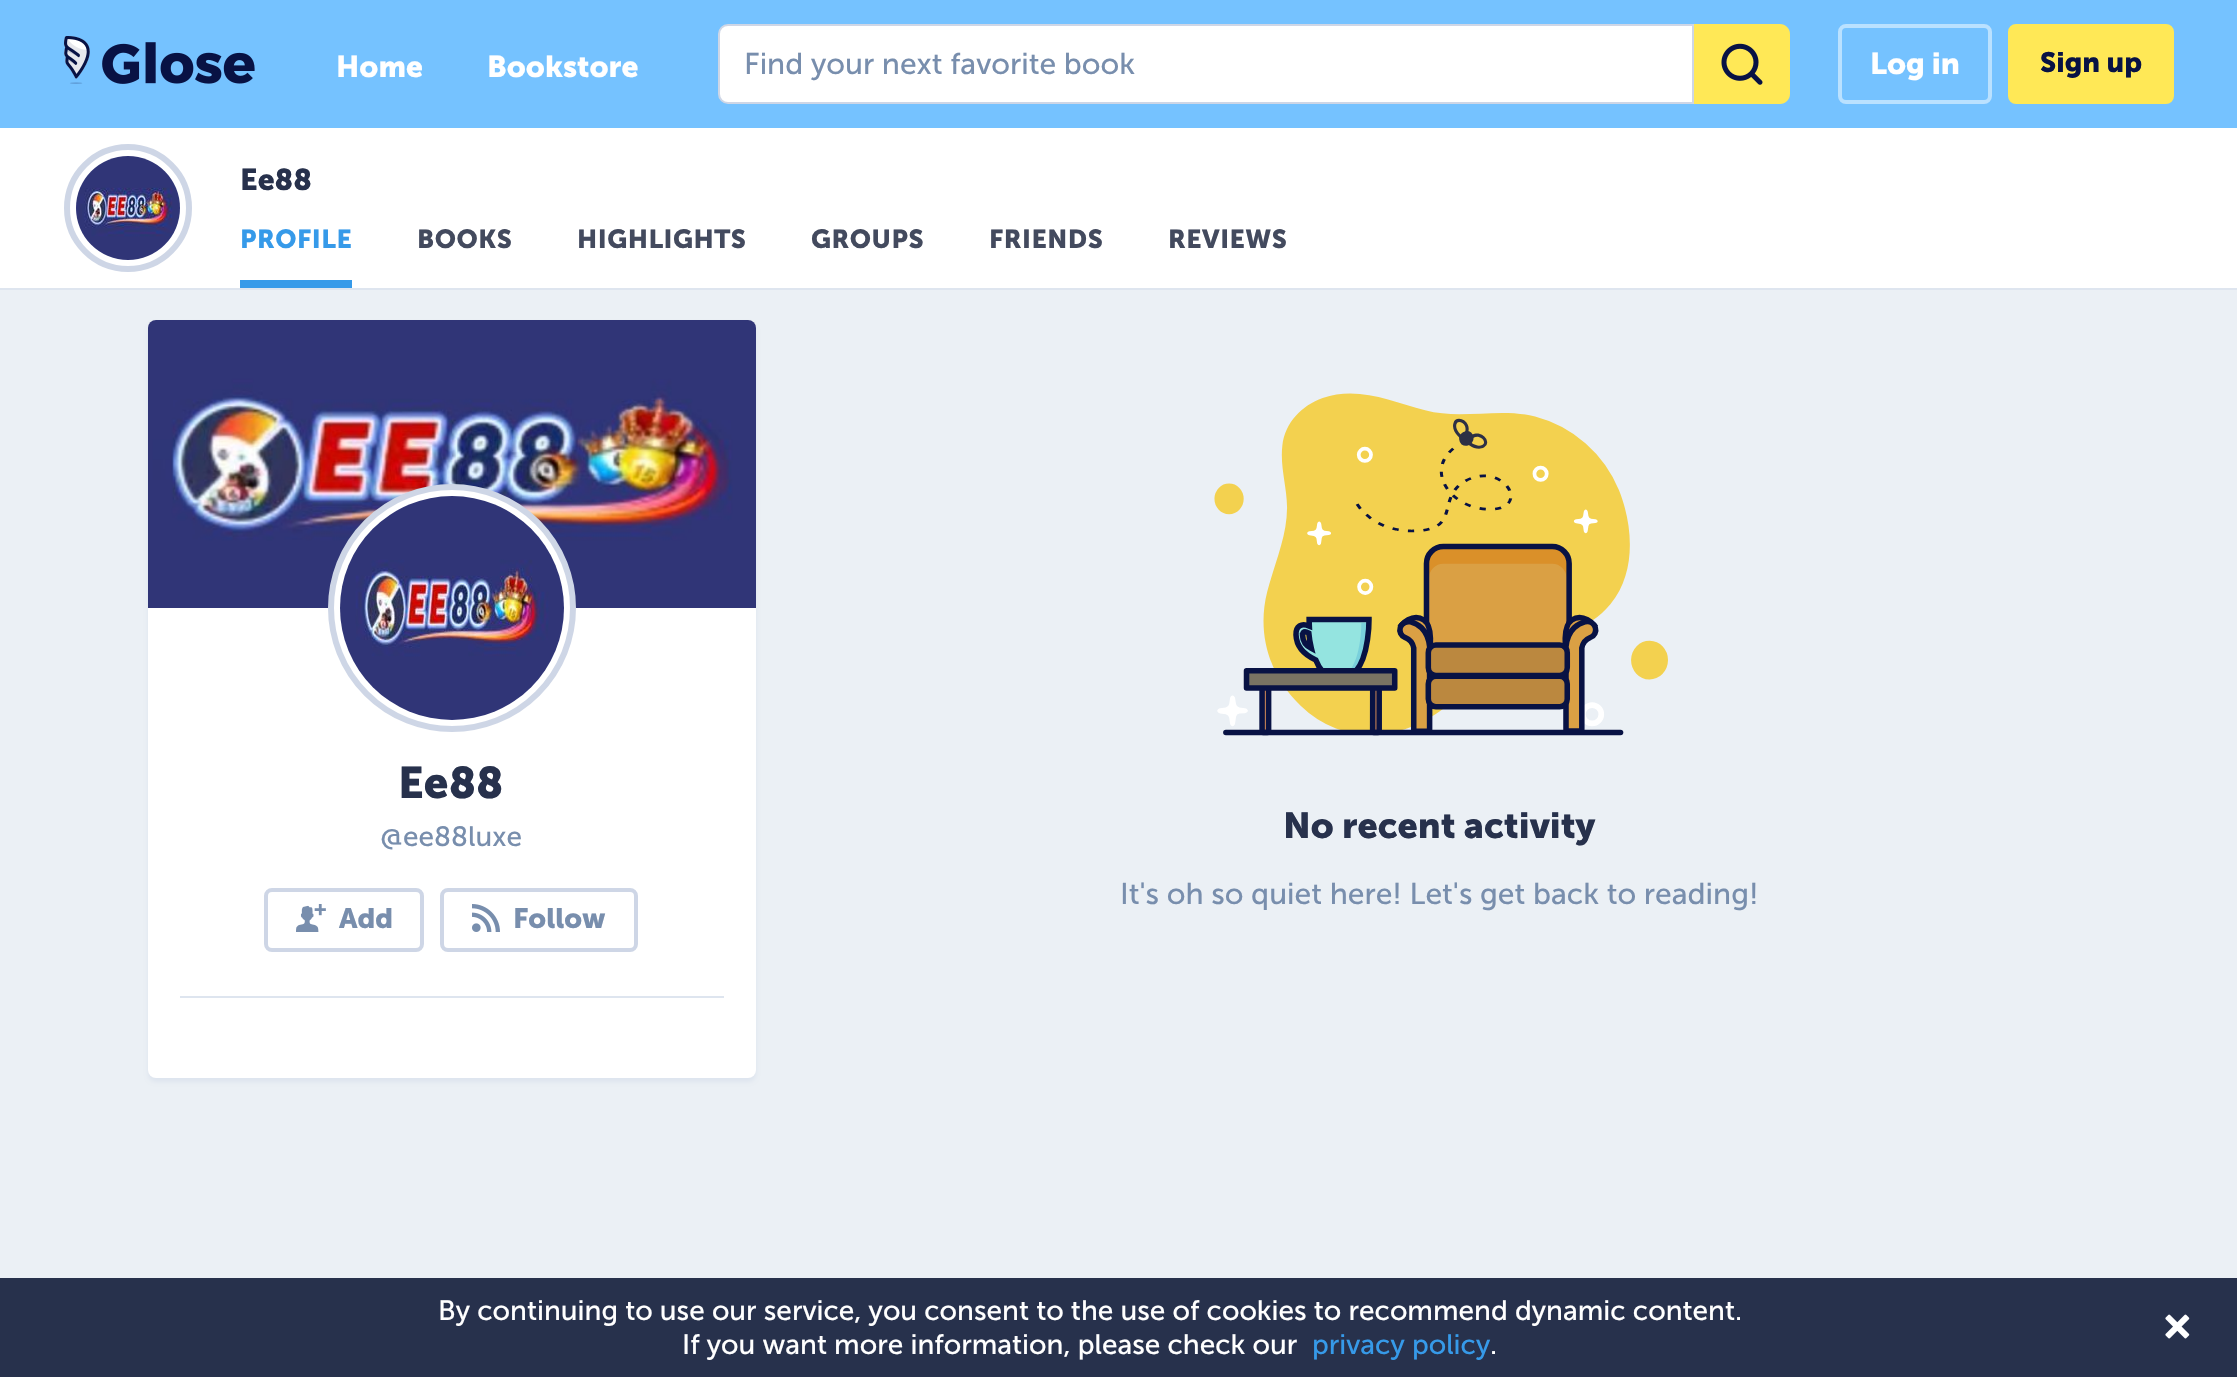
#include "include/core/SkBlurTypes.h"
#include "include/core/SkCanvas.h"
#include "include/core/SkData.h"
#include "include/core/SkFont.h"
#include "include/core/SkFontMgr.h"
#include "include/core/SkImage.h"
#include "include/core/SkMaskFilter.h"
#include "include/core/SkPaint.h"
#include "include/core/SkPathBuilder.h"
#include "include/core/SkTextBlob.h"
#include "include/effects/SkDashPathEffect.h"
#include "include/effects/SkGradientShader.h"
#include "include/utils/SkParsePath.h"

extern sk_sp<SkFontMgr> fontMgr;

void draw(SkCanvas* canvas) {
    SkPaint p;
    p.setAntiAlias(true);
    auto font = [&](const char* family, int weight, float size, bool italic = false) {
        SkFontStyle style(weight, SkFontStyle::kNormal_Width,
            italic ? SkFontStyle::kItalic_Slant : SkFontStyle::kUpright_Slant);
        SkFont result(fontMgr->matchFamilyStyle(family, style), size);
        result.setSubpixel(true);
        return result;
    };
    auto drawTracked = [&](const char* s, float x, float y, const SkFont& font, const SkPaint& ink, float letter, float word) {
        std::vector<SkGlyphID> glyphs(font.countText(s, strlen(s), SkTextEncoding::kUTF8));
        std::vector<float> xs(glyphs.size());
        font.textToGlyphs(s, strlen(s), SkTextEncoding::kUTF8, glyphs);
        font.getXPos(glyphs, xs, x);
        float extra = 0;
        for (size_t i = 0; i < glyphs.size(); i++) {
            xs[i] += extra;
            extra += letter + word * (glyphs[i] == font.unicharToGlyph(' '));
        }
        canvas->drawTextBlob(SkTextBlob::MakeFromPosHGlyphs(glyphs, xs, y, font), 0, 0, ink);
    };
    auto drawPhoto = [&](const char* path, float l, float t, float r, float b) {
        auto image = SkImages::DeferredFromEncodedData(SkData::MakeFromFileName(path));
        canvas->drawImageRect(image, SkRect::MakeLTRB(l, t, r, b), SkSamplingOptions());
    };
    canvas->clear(0xFFEBF0F5);
    p.setColor(0xFF75C2FF);
    canvas->drawRect(SkRect::MakeLTRB(0, 0, 2237, 128), p);
    drawPhoto("media/1.png", 64, 36, 255, 84);
    auto font1 = font("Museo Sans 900", 700, 30);
    p.setColor(0xFFFFFFFF);
    canvas->drawString("Home", 336, 77, font1, p);
    canvas->drawString("Bookstore", 487, 77, font1, p);
    canvas->drawPath(SkPathBuilder().moveTo(728, 25).lineTo(1693, 25).lineTo(1693, 103).lineTo(728, 103).cubicTo(723, 103, 719, 99, 719, 94).lineTo(719, 34).cubicTo(719, 29, 723, 25, 728, 25).close().detach(), p);
    p.setStyle(SkPaint::kStroke_Style);
    p.setStrokeWidth(2);
    p.setColor(0xFFCED6E6);
    canvas->drawPath(SkPathBuilder().moveTo(728, 25).lineTo(1693, 25).lineTo(1693, 103).lineTo(728, 103).cubicTo(723, 103, 719, 99, 719, 94).lineTo(719, 34).cubicTo(719, 29, 723, 25, 728, 25).close().detach(), p);
    auto font2 = font("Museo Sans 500", 400, 30);
    p.setStyle(SkPaint::kFill_Style);
    p.setColor(0xFF788EAD);
    canvas->drawString("Find your next favorite book", 744, 74, font2, p);
    p.setColor(0xFFFFE856);
    canvas->drawPath(SkPathBuilder().moveTo(1694, 24).lineTo(1780, 24).cubicTo(1785.5f, 24, 1790, 28.5f, 1790, 34).lineTo(1790, 94).cubicTo(1790, 99.5f, 1785.5f, 104, 1780, 104).lineTo(1694, 104).close().detach(), p);
    drawPhoto("media/2.png", 1721, 43, 1763, 85);
    p.setStyle(SkPaint::kStroke_Style);
    p.setStrokeWidth(4);
    p.setColor(0xFFBAE1FF);
    canvas->drawRoundRect(SkRect::MakeLTRB(1840, 26, 1990, 102), 6, 6, p);
    p.setStyle(SkPaint::kFill_Style);
    p.setColor(0xFFFFFFFF);
    canvas->drawString("Log in", 1870, 74, font1, p);
    p.setColor(0xFFFFE856);
    canvas->drawRoundRect(SkRect::MakeLTRB(2010, 26, 2172, 102), 6, 6, p);
    p.setStyle(SkPaint::kStroke_Style);
    canvas->drawRoundRect(SkRect::MakeLTRB(2010, 26, 2172, 102), 6, 6, p);
    auto font3 = font("Museo Sans 900", 700, 28);
    p.setStyle(SkPaint::kFill_Style);
    p.setColor(0xFF081244);
    canvas->drawString("Sign up", 2040, 72, font3, p);
    p.setColor(0xFFDEE5EF);
    canvas->drawRect(SkRect::MakeLTRB(0, 288, 2237, 290), p);
    p.setColor(0xFFFFFFFF);
    canvas->drawRect(SkRect::MakeLTRB(0, 128, 2237, 288), p);
    p.setStyle(SkPaint::kStroke_Style);
    p.setStrokeWidth(6);
    p.setColor(0xFFCED6E6);
    canvas->drawCircle(128, 208, 61, p);
    drawPhoto("media/3.png", 76, 156, 180, 260);
    p.setStyle(SkPaint::kFill_Style);
    p.setColor(0xFF27314C);
    canvas->drawString("Ee88", 240, 190, font1, p);
    p.setColor(0xFF369AE9);
    canvas->drawRect(SkRect::MakeLTRB(240, 280, 352, 288), p);
    auto font4 = font("Museo Sans 900", 700, 26);
    drawTracked("PROFILE", 240, 248, font4, p, 0.5f, 0);
    p.setColor(0xFF434A5E);
    {
        const struct { const char* s; float x, y; } items[] = {
            {"BOOKS", 417, 248},
            {"HIGHLIGHTS", 577, 248},
            {"GROUPS", 811, 248},
            {"FRIENDS", 989, 248},
            {"REVIEWS", 1168, 248},
        };
        for (auto [s, x, y] : items) {
            drawTracked(s, x, y, font4, p, 0.5f, 0);
        }
    }
    p.setColor(0xFFDEE5EF);
    p.setMaskFilter(SkMaskFilter::MakeBlur(kNormal_SkBlurStyle, 2));
    canvas->drawRoundRect(SkRect::MakeLTRB(148, 324, 756, 1082), 8, 8, p);
    p.setMaskFilter(nullptr);
    p.setColor(0xFFFFFFFF);
    canvas->drawRoundRect(SkRect::MakeLTRB(148, 320, 756, 1078), 8, 8, p);
    drawPhoto("media/4.png", 148, 320, 756, 608);
    canvas->drawCircle(452, 608, 121, p);
    p.setStyle(SkPaint::kStroke_Style);
    p.setColor(0xFFCED6E6);
    canvas->drawCircle(452, 608, 121, p);
    drawPhoto("media/5.png", 340, 496, 564, 720);
    auto font5 = font("Museo Sans 900", 700, 44);
    p.setStyle(SkPaint::kFill_Style);
    p.setColor(0xFF27314C);
    canvas->drawString("Ee88", 398, 798, font5, p);
    auto font6 = font("Museo Sans 500", 400, 28);
    p.setColor(0xFF788EAD);
    canvas->drawString("@ee88luxe", 380, 846, font6, p);
    p.setStyle(SkPaint::kStroke_Style);
    p.setStrokeWidth(4);
    p.setColor(0xFFCED6E6);
    canvas->drawRoundRect(SkRect::MakeLTRB(266, 890, 422, 950), 6, 6, p);
    drawPhoto("media/6.png", 296, 904, 326, 932);
    p.setStyle(SkPaint::kFill_Style);
    p.setColor(0xFF788EAD);
    canvas->drawString("Add", 339, 928, font3, p);
    p.setStyle(SkPaint::kStroke_Style);
    p.setColor(0xFFCED6E6);
    canvas->drawRoundRect(SkRect::MakeLTRB(442, 890, 636, 950), 6, 6, p);
    drawPhoto("media/7.png", 472, 904, 500, 932);
    p.setStyle(SkPaint::kFill_Style);
    p.setColor(0xFF788EAD);
    canvas->drawString("Follow", 513, 928, font3, p);
    p.setColor(0xFFDEE5EF);
    canvas->drawRect(SkRect::MakeLTRB(180, 996, 724, 998), p);
    drawPhoto("media/8.png", 1214, 393, 1668, 736);
    auto font7 = font("Museo Sans 900", 700, 36);
    p.setColor(0xFF27314C);
    canvas->drawString("No recent activity", 1283, 838, font7, p);
    p.setColor(0xFF788EAD);
    canvas->drawString("It's oh so quiet here! Let's get back to reading!", 1120, 904, font2, p);
    p.setColor(0xFF27314C);
    canvas->drawRect(SkRect::MakeLTRB(0, 1278, 2237, 1377), p);
    p.setColor(0xFFFFFFFF);
    canvas->drawString("By continuing to use our service, you consent to the use of cookies to recommend dynamic content.", 438, 1320, font6, p);
    canvas->drawString("If you want more information, please check our", 682, 1354, font6, p);
    p.setColor(0xFF369AE9);
    canvas->drawString("privacy policy", 1312, 1354, font6, p);
    p.setColor(0xFFFFFFFF);
    canvas->drawString(".", 1490, 1354, font6, p);
    drawPhoto("media/9.png", 2165, 1314, 2190, 1339);
}
